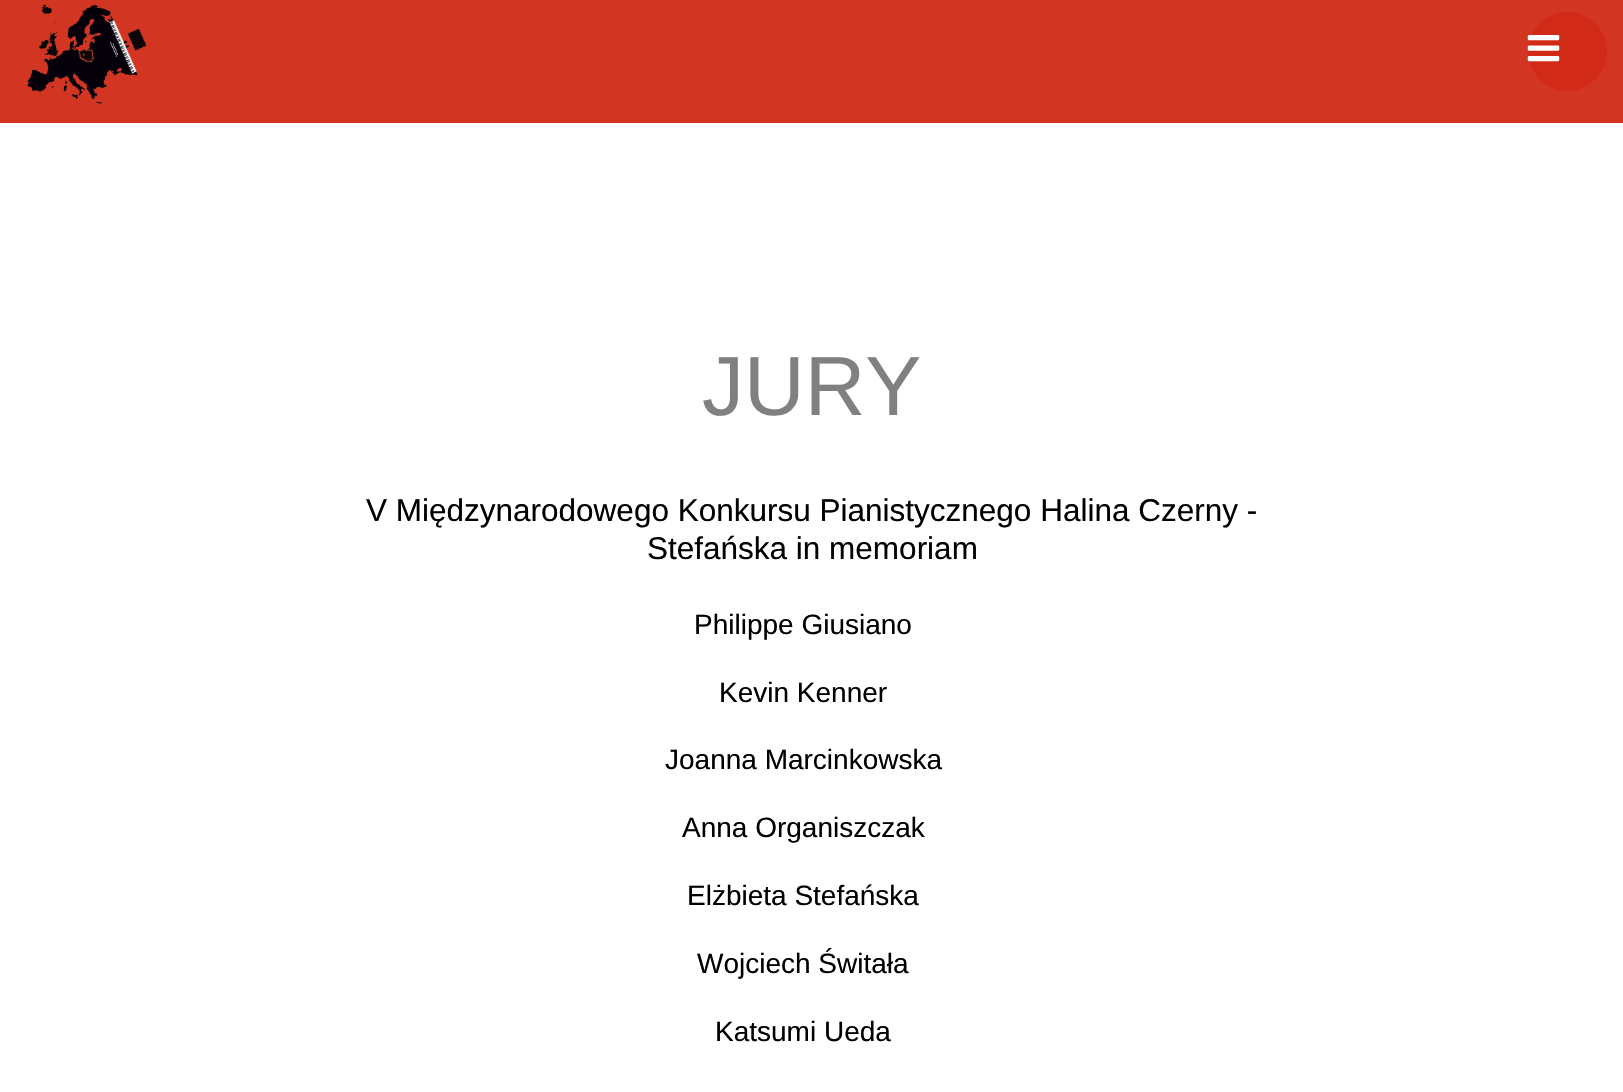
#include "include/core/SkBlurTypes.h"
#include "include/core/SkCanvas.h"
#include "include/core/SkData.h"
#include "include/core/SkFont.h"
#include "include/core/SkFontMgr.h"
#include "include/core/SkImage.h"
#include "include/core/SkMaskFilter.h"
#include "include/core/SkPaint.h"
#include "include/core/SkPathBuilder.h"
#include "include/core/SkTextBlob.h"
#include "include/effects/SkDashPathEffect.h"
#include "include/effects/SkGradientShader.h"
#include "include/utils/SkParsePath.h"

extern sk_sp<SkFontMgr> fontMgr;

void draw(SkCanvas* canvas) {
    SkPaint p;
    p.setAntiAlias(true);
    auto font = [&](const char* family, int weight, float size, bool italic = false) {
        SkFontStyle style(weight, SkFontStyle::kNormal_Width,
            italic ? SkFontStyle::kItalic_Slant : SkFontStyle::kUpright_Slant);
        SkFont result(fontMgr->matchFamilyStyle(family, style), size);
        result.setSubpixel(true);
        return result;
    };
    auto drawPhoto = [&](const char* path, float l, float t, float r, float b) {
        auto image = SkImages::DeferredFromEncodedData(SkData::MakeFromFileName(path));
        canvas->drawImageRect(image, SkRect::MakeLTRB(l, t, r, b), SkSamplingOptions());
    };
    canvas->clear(0xFFFFFFFF);
    p.setColor(0xFFD33523);
    canvas->drawRect(SkRect::MakeLTRB(0, 0, 1623, 123), p);
    drawPhoto("media/1.png", 27, 4, 147, 104);
    p.setColor(0xFFD12A17);
    canvas->drawCircle(1567.5f, 51.5f, 39.5f, p);
    drawPhoto("media/2.png", 1527, 35, 1560, 62);
    auto font1 = font("Liberation Sans", 400, 84);
    p.setColor(0xFF808080);
    canvas->drawString("JURY", 702, 415, font1, p);
    auto font2 = font("Liberation Sans", 400, 31.5f);
    p.setColor(0xFF000000);
    canvas->drawString("V Międzynarodowego Konkursu Pianistycznego Halina Czerny -", 366, 521, font2, p);
    canvas->drawString("Stefańska in memoriam", 647, 559, font2, p);
    auto font3 = font("Liberation Sans", 400, 28);
    {
        const struct { const char* s; float x, y; } items[] = {
            {"Philippe Giusiano", 694, 634},
            {"Kevin Kenner", 719, 702},
            {"Joanna Marcinkowska", 665, 769},
            {"Anna Organiszczak", 682, 837},
            {"Elżbieta Stefańska", 687, 905},
            {"Wojciech Świtała", 697, 973},
            {"Katsumi Ueda", 715, 1041},
        };
        for (auto [s, x, y] : items) {
            canvas->drawString(s, x, y, font3, p);
        }
    }
}
